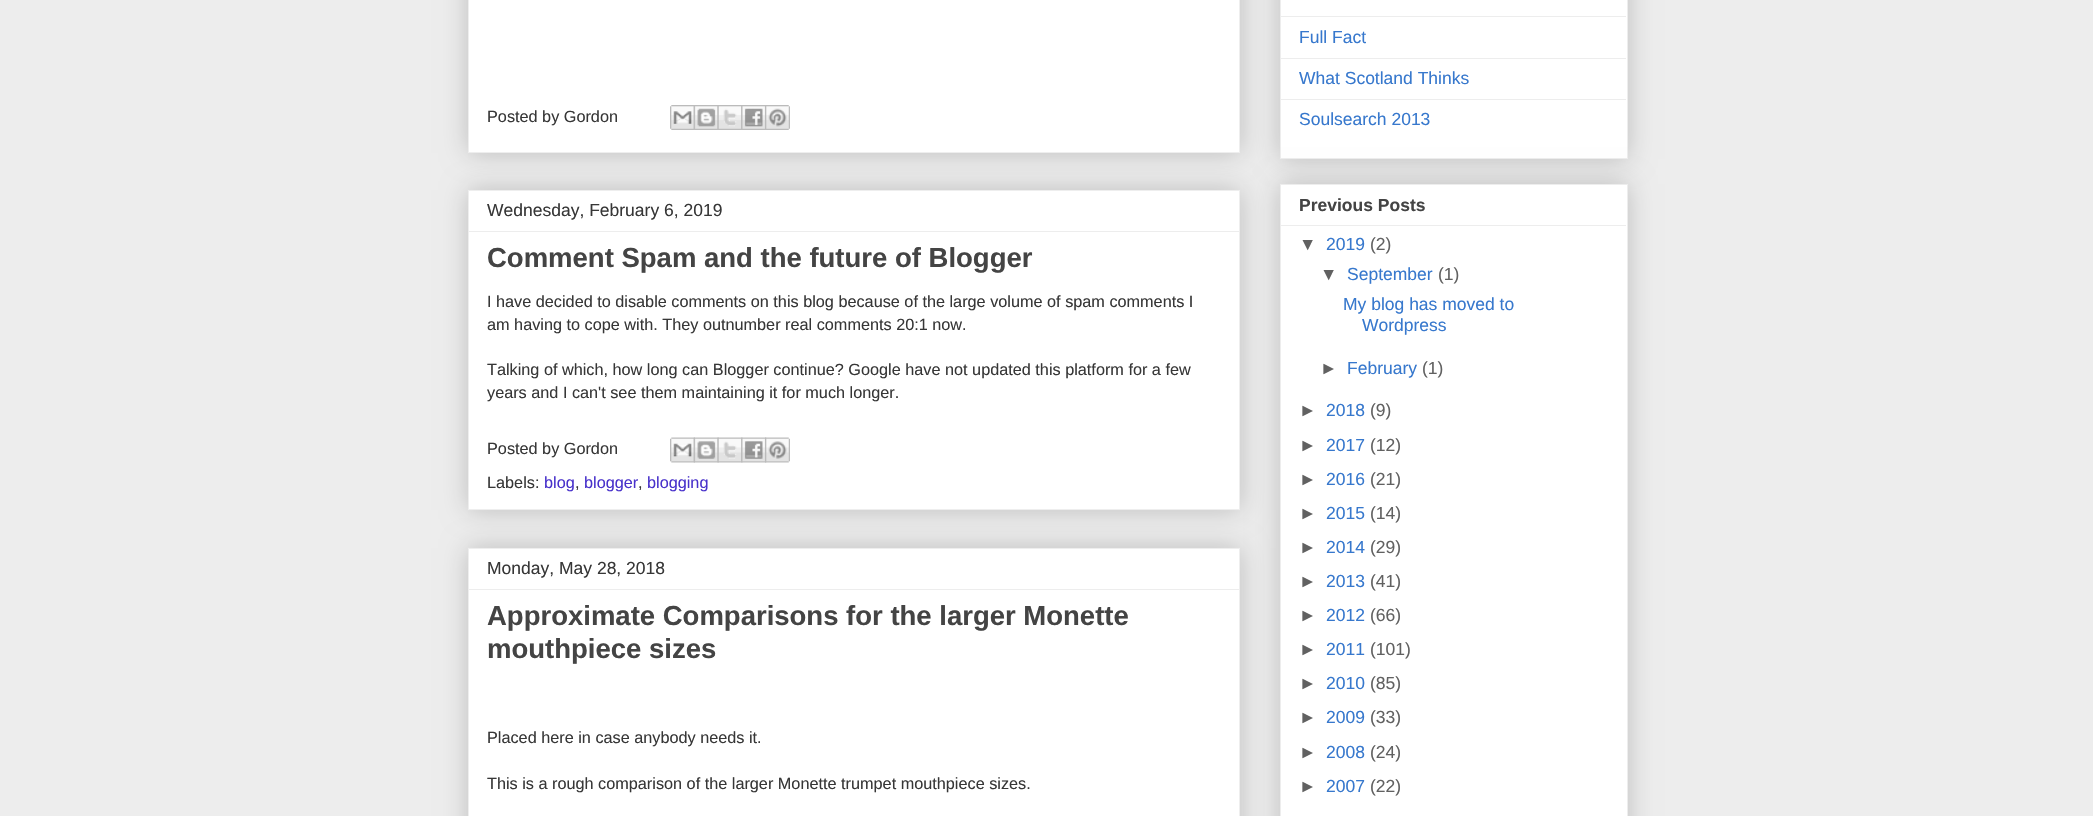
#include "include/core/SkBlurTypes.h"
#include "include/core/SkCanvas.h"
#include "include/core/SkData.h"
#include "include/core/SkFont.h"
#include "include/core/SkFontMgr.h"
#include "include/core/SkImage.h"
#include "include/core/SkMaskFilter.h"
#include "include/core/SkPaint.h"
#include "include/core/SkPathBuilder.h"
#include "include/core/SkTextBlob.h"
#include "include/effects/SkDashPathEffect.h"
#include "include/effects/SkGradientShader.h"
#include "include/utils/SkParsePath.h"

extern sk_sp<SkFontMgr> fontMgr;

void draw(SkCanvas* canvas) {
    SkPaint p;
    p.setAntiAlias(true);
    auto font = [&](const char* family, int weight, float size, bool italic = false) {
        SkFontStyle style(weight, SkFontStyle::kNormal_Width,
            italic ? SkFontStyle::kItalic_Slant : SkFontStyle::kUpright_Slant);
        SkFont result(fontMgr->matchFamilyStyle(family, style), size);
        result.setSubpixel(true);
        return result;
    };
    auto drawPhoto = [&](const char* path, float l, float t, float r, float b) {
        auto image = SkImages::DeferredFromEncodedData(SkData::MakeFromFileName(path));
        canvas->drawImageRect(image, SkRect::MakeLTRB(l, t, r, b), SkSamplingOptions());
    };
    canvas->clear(0xFFEDEDED);
    p.setColor(0x33000000);
    p.setMaskFilter(SkMaskFilter::MakeBlur(kNormal_SkBlurStyle, 12.5f));
    canvas->drawRect(SkRect::MakeLTRB(468, -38, 1240, 153), p);
    p.setMaskFilter(nullptr);
    p.setColor(0xFFFFFFFF);
    canvas->drawRect(SkRect::MakeLTRB(468.5f, -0.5f, 1239.5f, 152.5f), p);
    p.setStyle(SkPaint::kStroke_Style);
    p.setStrokeWidth(1);
    p.setColor(0xFFEEEEEE);
    canvas->drawRect(SkRect::MakeLTRB(468.5f, -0.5f, 1239.5f, 152.5f), p);
    auto font1 = font("Liberation Sans", 400, 16.25f);
    p.setStyle(SkPaint::kFill_Style);
    p.setColor(0xFF373737);
    canvas->drawString("Posted by Gordon", 487, 122, font1, p);
    drawPhoto("media/1.png", 670, 105, 694, 130);
    drawPhoto("media/2.png", 693, 105, 718, 130);
    drawPhoto("media/3.png", 717, 105, 742, 130);
    drawPhoto("media/4.png", 741, 105, 765, 130);
    drawPhoto("media/5.png", 765, 105, 790, 130);
    p.setColor(0x33000000);
    p.setMaskFilter(SkMaskFilter::MakeBlur(kNormal_SkBlurStyle, 12.5f));
    canvas->drawRect(SkRect::MakeLTRB(468, 190, 1240, 510), p);
    p.setMaskFilter(nullptr);
    p.setColor(0xFFFFFFFF);
    canvas->drawRect(SkRect::MakeLTRB(468.5f, 190.5f, 1239.5f, 509.5f), p);
    p.setStyle(SkPaint::kStroke_Style);
    p.setColor(0xFFEEEEEE);
    canvas->drawRect(SkRect::MakeLTRB(468.5f, 190.5f, 1239.5f, 509.5f), p);
    auto font2 = font("Liberation Sans", 400, 17.5f);
    p.setStyle(SkPaint::kFill_Style);
    p.setColor(0xFF373737);
    canvas->drawString("Wednesday, February 6, 2019", 487, 216, font2, p);
    p.setColor(0xFFEDEDED);
    canvas->drawRect(SkRect::MakeLTRB(469, 231, 1239, 232), p);
    auto font3 = font("Liberation Sans", 700, 27.5f);
    p.setColor(0xFF444444);
    canvas->drawString("Comment Spam and the future of Blogger", 487, 267, font3, p);
    p.setColor(0xFF373737);
    {
        const struct { const char* s; float x, y; } items[] = {
            {"I have decided to disable comments on this blog because of the large volume of spam comments I", 487, 307},
            {"am having to cope with. They outnumber real comments 20:1 now.", 487, 330},
            {"Talking of which, how long can Blogger continue? Google have not updated this platform for a few", 487, 375},
            {"years and I can't see them maintaining it for much longer.", 487, 398},
            {"Posted by Gordon", 487, 454},
        };
        for (auto [s, x, y] : items) {
            canvas->drawString(s, x, y, font1, p);
        }
    }
    drawPhoto("media/6.png", 670, 437, 695, 463);
    drawPhoto("media/7.png", 693, 437, 719, 463);
    drawPhoto("media/8.png", 717, 437, 743, 463);
    drawPhoto("media/9.png", 741, 437, 767, 463);
    drawPhoto("media/10.png", 765, 437, 790, 463);
    canvas->drawString("Labels:", 487, 488, font1, p);
    p.setColor(0xFF4932CB);
    canvas->drawString("blog", 544, 488, font1, p);
    p.setColor(0xFF373737);
    canvas->drawString(",", 575, 488, font1, p);
    p.setColor(0xFF4932CB);
    canvas->drawString("blogger", 584, 488, font1, p);
    p.setColor(0xFF373737);
    canvas->drawString(",", 638, 488, font1, p);
    p.setColor(0xFF4932CB);
    canvas->drawString("blogging", 647, 488, font1, p);
    p.setColor(0x33000000);
    p.setMaskFilter(SkMaskFilter::MakeBlur(kNormal_SkBlurStyle, 12.5f));
    canvas->drawRect(SkRect::MakeLTRB(468, 548, 1240, 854), p);
    p.setMaskFilter(nullptr);
    p.setColor(0xFFFFFFFF);
    canvas->drawRect(SkRect::MakeLTRB(468.5f, 548.5f, 1239.5f, 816.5f), p);
    p.setStyle(SkPaint::kStroke_Style);
    p.setColor(0xFFEEEEEE);
    canvas->drawRect(SkRect::MakeLTRB(468.5f, 548.5f, 1239.5f, 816.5f), p);
    p.setStyle(SkPaint::kFill_Style);
    p.setColor(0xFF373737);
    canvas->drawString("Monday, May 28, 2018", 487, 574, font2, p);
    p.setColor(0xFFEDEDED);
    canvas->drawRect(SkRect::MakeLTRB(469, 589, 1239, 590), p);
    p.setColor(0xFF444444);
    canvas->drawString("Approximate Comparisons for the larger Monette", 487, 625, font3, p);
    canvas->drawString("mouthpiece sizes", 487, 658, font3, p);
    p.setColor(0xFF373737);
    canvas->drawString("Placed here in case anybody needs it.", 487, 743, font1, p);
    canvas->drawString("This is a rough comparison of the larger Monette trumpet mouthpiece sizes.", 487, 789, font1, p);
    p.setColor(0x33000000);
    p.setMaskFilter(SkMaskFilter::MakeBlur(kNormal_SkBlurStyle, 12.5f));
    canvas->drawRect(SkRect::MakeLTRB(1280, -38, 1628, 159), p);
    p.setMaskFilter(nullptr);
    p.setColor(0xFFFFFFFF);
    canvas->drawRect(SkRect::MakeLTRB(1280.5f, -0.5f, 1627.5f, 158.5f), p);
    p.setStyle(SkPaint::kStroke_Style);
    p.setColor(0xFFEDEDED);
    canvas->drawRect(SkRect::MakeLTRB(1280.5f, -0.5f, 1627.5f, 158.5f), p);
    p.setStyle(SkPaint::kFill_Style);
    canvas->drawRect(SkRect::MakeLTRB(1281, 16, 1626, 17), p);
    p.setColor(0xFF3778CD);
    canvas->drawString("Full Fact", 1299, 43, font2, p);
    p.setColor(0xFFEDEDED);
    canvas->drawRect(SkRect::MakeLTRB(1281, 58, 1626, 59), p);
    p.setColor(0xFF3778CD);
    canvas->drawString("What Scotland Thinks", 1299, 84, font2, p);
    p.setColor(0xFFEDEDED);
    canvas->drawRect(SkRect::MakeLTRB(1281, 99, 1626, 100), p);
    p.setColor(0xFF3778CD);
    canvas->drawString("Soulsearch 2013", 1299, 125, font2, p);
    p.setColor(0x33000000);
    p.setMaskFilter(SkMaskFilter::MakeBlur(kNormal_SkBlurStyle, 12.5f));
    canvas->drawRect(SkRect::MakeLTRB(1280, 184, 1628, 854), p);
    p.setMaskFilter(nullptr);
    p.setColor(0xFFFFFFFF);
    canvas->drawRect(SkRect::MakeLTRB(1280.5f, 184.5f, 1627.5f, 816.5f), p);
    p.setStyle(SkPaint::kStroke_Style);
    p.setColor(0xFFEDEDED);
    canvas->drawRect(SkRect::MakeLTRB(1280.5f, 184.5f, 1627.5f, 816.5f), p);
    auto font4 = font("Liberation Sans", 700, 17.5f);
    p.setStyle(SkPaint::kFill_Style);
    p.setColor(0xFF444444);
    canvas->drawString("Previous Posts", 1299, 211, font4, p);
    p.setColor(0xFFEDEDED);
    canvas->drawRect(SkRect::MakeLTRB(1281, 225, 1626, 226), p);
    p.setColor(0xFF616161);
    canvas->drawString("▼", 1299, 250, font2, p);
    p.setColor(0xFF3778CD);
    canvas->drawString("2019", 1326, 250, font2, p);
    p.setColor(0xFF616161);
    canvas->drawString("(2)", 1370, 250, font2, p);
    canvas->drawString("▼", 1320, 280, font2, p);
    p.setColor(0xFF3778CD);
    canvas->drawString("September", 1347, 280, font2, p);
    p.setColor(0xFF616161);
    canvas->drawString("(1)", 1438, 280, font2, p);
    p.setColor(0xFF3778CD);
    canvas->drawString("My blog has moved to", 1343, 310, font2, p);
    canvas->drawString("Wordpress", 1362, 331, font2, p);
    p.setColor(0xFF616161);
    canvas->drawString("►", 1320, 374, font2, p);
    p.setColor(0xFF3778CD);
    canvas->drawString("February", 1347, 374, font2, p);
    p.setColor(0xFF616161);
    canvas->drawString("(1)", 1422, 374, font2, p);
    canvas->drawString("►", 1299, 416, font2, p);
    p.setColor(0xFF3778CD);
    canvas->drawString("2018", 1326, 416, font2, p);
    p.setColor(0xFF616161);
    canvas->drawString("(9)", 1370, 416, font2, p);
    canvas->drawString("►", 1299, 451, font2, p);
    p.setColor(0xFF3778CD);
    canvas->drawString("2017", 1326, 451, font2, p);
    p.setColor(0xFF616161);
    canvas->drawString("(12)", 1370, 451, font2, p);
    canvas->drawString("►", 1299, 485, font2, p);
    p.setColor(0xFF3778CD);
    canvas->drawString("2016", 1326, 485, font2, p);
    p.setColor(0xFF616161);
    canvas->drawString("(21)", 1370, 485, font2, p);
    canvas->drawString("►", 1299, 519, font2, p);
    p.setColor(0xFF3778CD);
    canvas->drawString("2015", 1326, 519, font2, p);
    p.setColor(0xFF616161);
    canvas->drawString("(14)", 1370, 519, font2, p);
    canvas->drawString("►", 1299, 553, font2, p);
    p.setColor(0xFF3778CD);
    canvas->drawString("2014", 1326, 553, font2, p);
    p.setColor(0xFF616161);
    canvas->drawString("(29)", 1370, 553, font2, p);
    canvas->drawString("►", 1299, 587, font2, p);
    p.setColor(0xFF3778CD);
    canvas->drawString("2013", 1326, 587, font2, p);
    p.setColor(0xFF616161);
    canvas->drawString("(41)", 1370, 587, font2, p);
    canvas->drawString("►", 1299, 621, font2, p);
    p.setColor(0xFF3778CD);
    canvas->drawString("2012", 1326, 621, font2, p);
    p.setColor(0xFF616161);
    canvas->drawString("(66)", 1370, 621, font2, p);
    canvas->drawString("►", 1299, 655, font2, p);
    p.setColor(0xFF3778CD);
    canvas->drawString("2011", 1326, 655, font2, p);
    p.setColor(0xFF616161);
    canvas->drawString("(101)", 1370, 655, font2, p);
    canvas->drawString("►", 1299, 689, font2, p);
    p.setColor(0xFF3778CD);
    canvas->drawString("2010", 1326, 689, font2, p);
    p.setColor(0xFF616161);
    canvas->drawString("(85)", 1370, 689, font2, p);
    canvas->drawString("►", 1299, 723, font2, p);
    p.setColor(0xFF3778CD);
    canvas->drawString("2009", 1326, 723, font2, p);
    p.setColor(0xFF616161);
    canvas->drawString("(33)", 1370, 723, font2, p);
    canvas->drawString("►", 1299, 758, font2, p);
    p.setColor(0xFF3778CD);
    canvas->drawString("2008", 1326, 758, font2, p);
    p.setColor(0xFF616161);
    canvas->drawString("(24)", 1370, 758, font2, p);
    canvas->drawString("►", 1299, 792, font2, p);
    p.setColor(0xFF3778CD);
    canvas->drawString("2007", 1326, 792, font2, p);
    p.setColor(0xFF616161);
    canvas->drawString("(22)", 1370, 792, font2, p);
}
